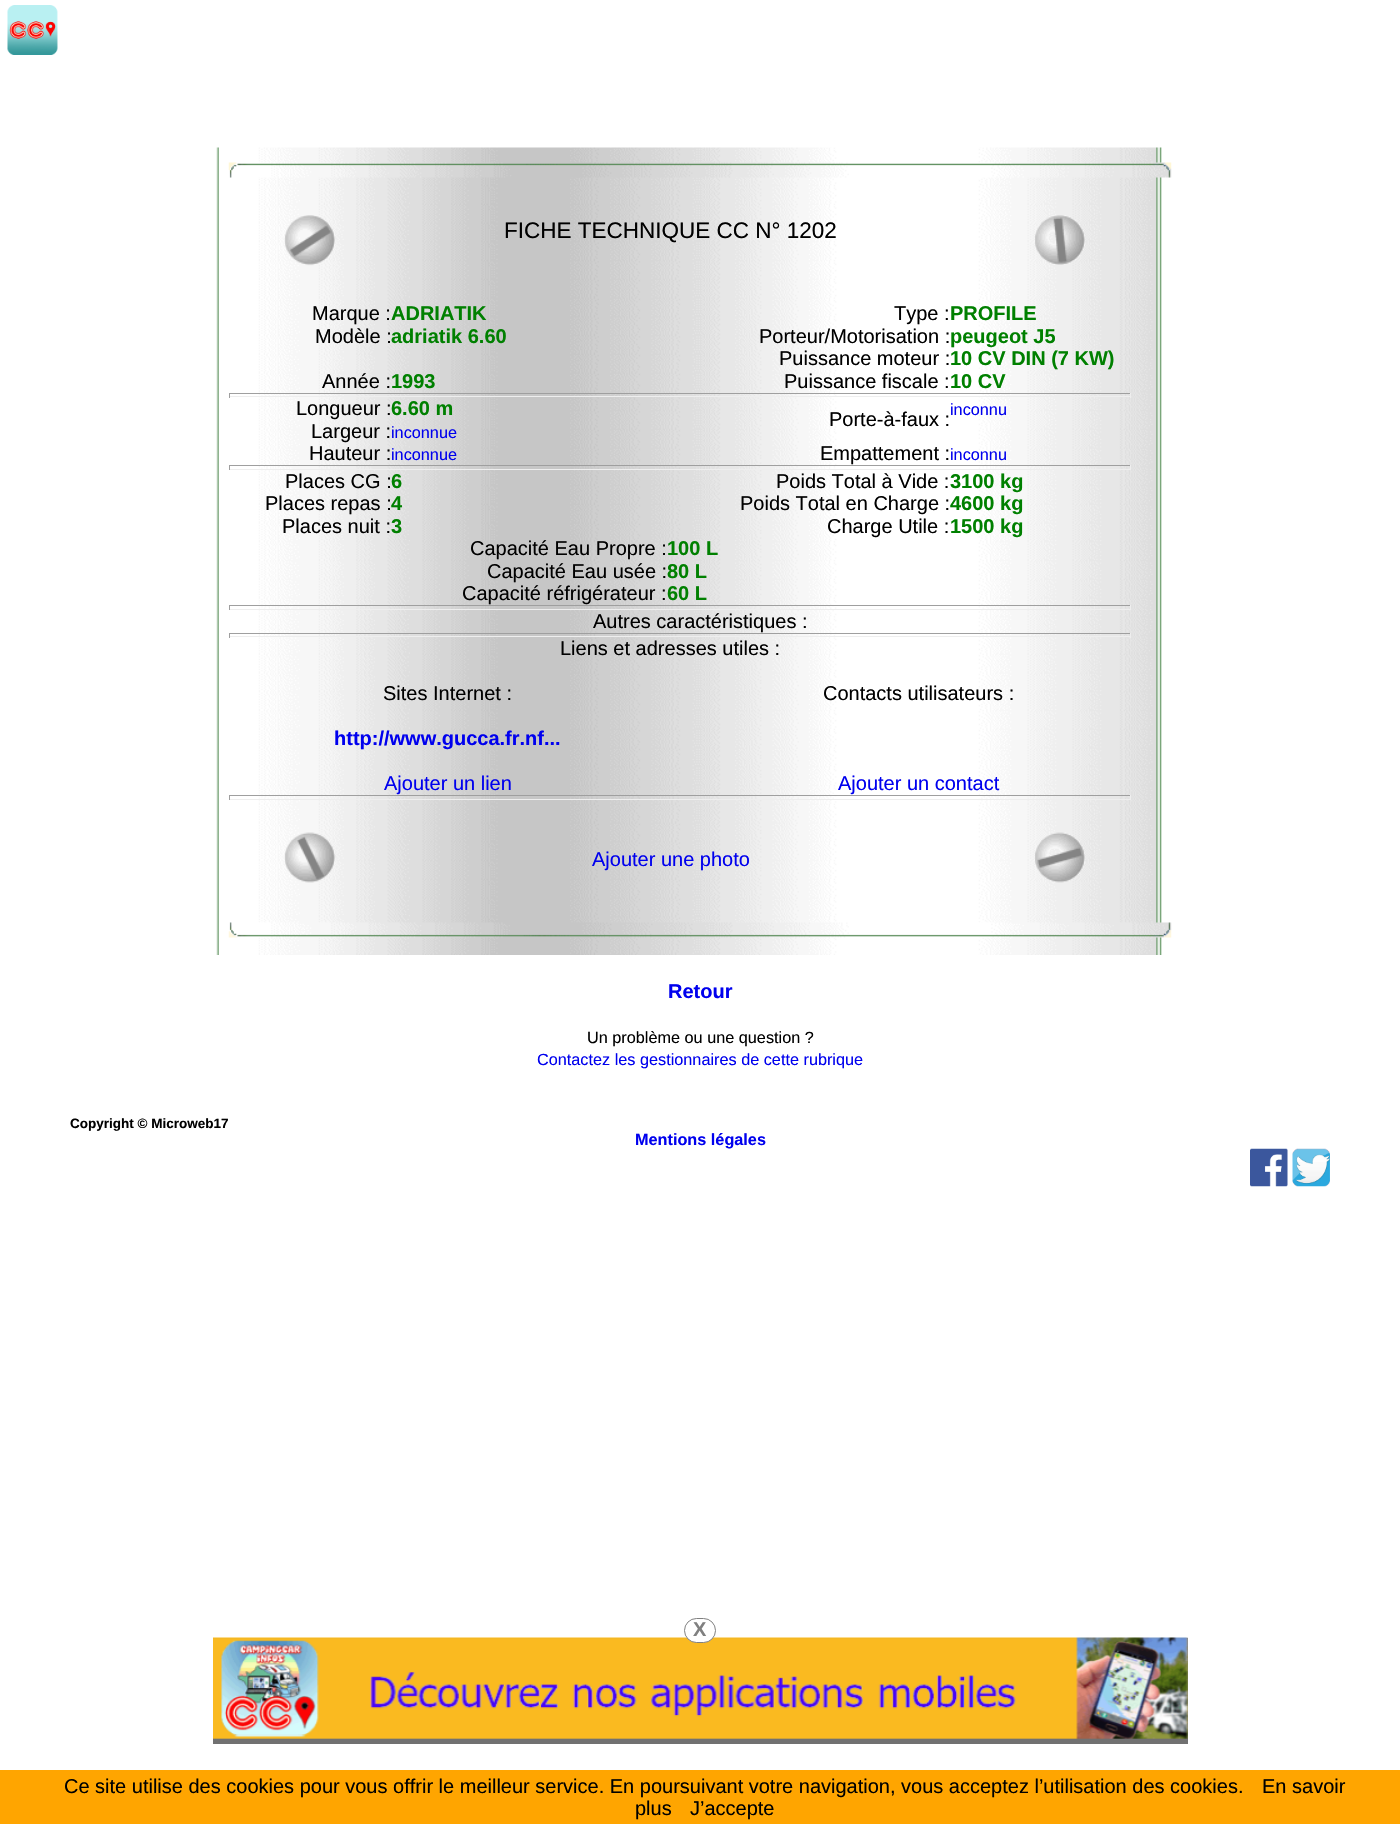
#include "include/core/SkBlurTypes.h"
#include "include/core/SkCanvas.h"
#include "include/core/SkData.h"
#include "include/core/SkFont.h"
#include "include/core/SkFontMgr.h"
#include "include/core/SkImage.h"
#include "include/core/SkMaskFilter.h"
#include "include/core/SkPaint.h"
#include "include/core/SkPathBuilder.h"
#include "include/core/SkTextBlob.h"
#include "include/effects/SkDashPathEffect.h"
#include "include/effects/SkGradientShader.h"
#include "include/utils/SkParsePath.h"

extern sk_sp<SkFontMgr> fontMgr;

void draw(SkCanvas* canvas) {
    SkPaint p;
    p.setAntiAlias(true);
    auto font = [&](const char* family, int weight, float size, bool italic = false) {
        SkFontStyle style(weight, SkFontStyle::kNormal_Width,
            italic ? SkFontStyle::kItalic_Slant : SkFontStyle::kUpright_Slant);
        SkFont result(fontMgr->matchFamilyStyle(family, style), size);
        result.setSubpixel(true);
        return result;
    };
    auto drawPhoto = [&](const char* path, float l, float t, float r, float b) {
        auto image = SkImages::DeferredFromEncodedData(SkData::MakeFromFileName(path));
        canvas->drawImageRect(image, SkRect::MakeLTRB(l, t, r, b), SkSamplingOptions());
    };
    canvas->clear(0xFFFFFFFF);
    drawPhoto("media/1.png", 7, 5, 58, 55);
    drawPhoto("media/2.png", 216, 147, 1162, 955);
    drawPhoto("media/3.png", 228, 162, 1172, 178);
    drawPhoto("media/4.png", 284, 215, 336, 266);
    auto font1 = font("Liberation Sans", 400, 22.5f);
    p.setColor(0xFF000000);
    canvas->drawString("FICHE TECHNIQUE CC N° 1202", 504, 238, font1, p);
    drawPhoto("media/5.png", 1035, 215, 1085, 265);
    auto font2 = font("Liberation Sans", 400, 20);
    canvas->drawString("Marque :", 312, 320, font2, p);
    auto font3 = font("Liberation Sans", 700, 20);
    p.setColor(0xFF008000);
    canvas->drawString("ADRIATIK", 391, 320, font3, p);
    p.setColor(0xFF000000);
    canvas->drawString("Type :", 894, 320, font2, p);
    p.setColor(0xFF008000);
    canvas->drawString("PROFILE", 950, 320, font3, p);
    p.setColor(0xFF000000);
    canvas->drawString("Modèle :", 315, 343, font2, p);
    p.setColor(0xFF008000);
    canvas->drawString("adriatik 6.60", 391, 343, font3, p);
    p.setColor(0xFF000000);
    canvas->drawString("Porteur/Motorisation :", 759, 343, font2, p);
    p.setColor(0xFF008000);
    canvas->drawString("peugeot J5", 950, 343, font3, p);
    p.setColor(0xFF000000);
    canvas->drawString("Puissance moteur :", 779, 365, font2, p);
    p.setColor(0xFF008000);
    canvas->drawString("10 CV DIN (7 KW)", 950, 365, font3, p);
    p.setColor(0xFF000000);
    canvas->drawString("Année :", 322, 388, font2, p);
    p.setColor(0xFF008000);
    canvas->drawString("1993", 391, 388, font3, p);
    p.setColor(0xFF000000);
    canvas->drawString("Puissance fiscale :", 784, 388, font2, p);
    p.setColor(0xFF008000);
    canvas->drawString("10 CV", 950, 388, font3, p);
    {
        const struct { float l, t, r, b; SkColor color; } items[] = {
            {229, 393, 1131, 394, 0xFF9F9F9F},
            {1130, 393, 1131, 398, 0xFFEEEEEE},
            {229, 396, 1131, 397, 0xFFEEEEEE},
            {229, 393, 230, 398, 0xFF9F9F9F},
        };
        for (auto [l, t, r, b, color] : items) {
            p.setColor(color);
            canvas->drawRect(SkRect::MakeLTRB(l, t, r, b), p);
        }
    }
    p.setColor(0xFF000000);
    canvas->drawString("Longueur :", 296, 415, font2, p);
    p.setColor(0xFF008000);
    canvas->drawString("6.60 m", 391, 415, font3, p);
    auto font4 = font("Liberation Sans", 400, 16.25f);
    p.setColor(0xFF0000EE);
    canvas->drawString("inconnu", 950, 415, font4, p);
    p.setColor(0xFF000000);
    canvas->drawString("Porte-à-faux :", 829, 426, font2, p);
    canvas->drawString("Largeur :", 311, 438, font2, p);
    p.setColor(0xFF0000EE);
    canvas->drawString("inconnue", 391, 438, font4, p);
    p.setColor(0xFF000000);
    canvas->drawString("Hauteur :", 309, 460, font2, p);
    p.setColor(0xFF0000EE);
    canvas->drawString("inconnue", 391, 460, font4, p);
    p.setColor(0xFF000000);
    canvas->drawString("Empattement :", 820, 460, font2, p);
    p.setColor(0xFF0000EE);
    canvas->drawString("inconnu", 950, 460, font4, p);
    {
        const struct { float l, t, r, b; SkColor color; } items[] = {
            {229, 465, 1131, 466, 0xFF9F9F9F},
            {1130, 465, 1131, 470, 0xFFEEEEEE},
            {229, 469, 1131, 470, 0xFFEEEEEE},
            {229, 465, 230, 470, 0xFF9F9F9F},
        };
        for (auto [l, t, r, b, color] : items) {
            p.setColor(color);
            canvas->drawRect(SkRect::MakeLTRB(l, t, r, b), p);
        }
    }
    p.setColor(0xFF000000);
    canvas->drawString("Places CG :", 285, 488, font2, p);
    p.setColor(0xFF008000);
    canvas->drawString("6", 391, 488, font3, p);
    p.setColor(0xFF000000);
    canvas->drawString("Poids Total à Vide :", 776, 488, font2, p);
    p.setColor(0xFF008000);
    canvas->drawString("3100 kg", 950, 488, font3, p);
    p.setColor(0xFF000000);
    canvas->drawString("Places repas :", 265, 510, font2, p);
    p.setColor(0xFF008000);
    canvas->drawString("4", 391, 510, font3, p);
    p.setColor(0xFF000000);
    canvas->drawString("Poids Total en Charge :", 740, 510, font2, p);
    p.setColor(0xFF008000);
    canvas->drawString("4600 kg", 950, 510, font3, p);
    p.setColor(0xFF000000);
    canvas->drawString("Places nuit :", 282, 533, font2, p);
    p.setColor(0xFF008000);
    canvas->drawString("3", 391, 533, font3, p);
    p.setColor(0xFF000000);
    canvas->drawString("Charge Utile :", 827, 533, font2, p);
    p.setColor(0xFF008000);
    canvas->drawString("1500 kg", 950, 533, font3, p);
    p.setColor(0xFF000000);
    canvas->drawString("Capacité Eau Propre :", 470, 555, font2, p);
    p.setColor(0xFF008000);
    canvas->drawString("100 L", 667, 555, font3, p);
    p.setColor(0xFF000000);
    canvas->drawString("Capacité Eau usée :", 487, 578, font2, p);
    p.setColor(0xFF008000);
    canvas->drawString("80 L", 667, 578, font3, p);
    p.setColor(0xFF000000);
    canvas->drawString("Capacité réfrigérateur :", 462, 600, font2, p);
    p.setColor(0xFF008000);
    canvas->drawString("60 L", 667, 600, font3, p);
    {
        const struct { float l, t, r, b; SkColor color; } items[] = {
            {229, 605, 1131, 606, 0xFF9F9F9F},
            {1130, 605, 1131, 610, 0xFFEEEEEE},
            {229, 609, 1131, 610, 0xFFEEEEEE},
            {229, 605, 230, 610, 0xFF9F9F9F},
        };
        for (auto [l, t, r, b, color] : items) {
            p.setColor(color);
            canvas->drawRect(SkRect::MakeLTRB(l, t, r, b), p);
        }
    }
    p.setColor(0xFF000000);
    canvas->drawString("Autres caractéristiques :", 593, 628, font2, p);
    {
        const struct { float l, t, r, b; SkColor color; } items[] = {
            {229, 633, 1131, 634, 0xFF9F9F9F},
            {1130, 633, 1131, 638, 0xFFEEEEEE},
            {229, 636, 1131, 637, 0xFFEEEEEE},
            {229, 633, 230, 638, 0xFF9F9F9F},
        };
        for (auto [l, t, r, b, color] : items) {
            p.setColor(color);
            canvas->drawRect(SkRect::MakeLTRB(l, t, r, b), p);
        }
    }
    p.setColor(0xFF000000);
    canvas->drawString("Liens et adresses utiles :", 560, 655, font2, p);
    canvas->drawString("Sites Internet :", 383, 700, font2, p);
    p.setColor(0xFF0000EE);
    canvas->drawString("http://www.gucca.fr.nf...", 334, 745, font3, p);
    p.setColor(0xFF000000);
    canvas->drawString("Contacts utilisateurs :", 823, 700, font2, p);
    p.setColor(0xFF0000EE);
    canvas->drawString("Ajouter un lien", 384, 790, font2, p);
    canvas->drawString("Ajouter un contact", 838, 790, font2, p);
    {
        const struct { float l, t, r, b; SkColor color; } items[] = {
            {229, 795, 1131, 796, 0xFF9F9F9F},
            {1130, 795, 1131, 800, 0xFFEEEEEE},
            {229, 799, 1131, 800, 0xFFEEEEEE},
            {229, 795, 230, 800, 0xFF9F9F9F},
        };
        for (auto [l, t, r, b, color] : items) {
            p.setColor(color);
            canvas->drawRect(SkRect::MakeLTRB(l, t, r, b), p);
        }
    }
    drawPhoto("media/6.png", 284, 832, 336, 883);
    p.setColor(0xFF0000EE);
    canvas->drawString("Ajouter une photo", 592, 866, font2, p);
    drawPhoto("media/7.png", 1035, 832, 1085, 883);
    drawPhoto("media/8.png", 228, 922, 1172, 938);
    canvas->drawString("Retour", 668, 998, font3, p);
    p.setColor(0xFF000000);
    canvas->drawString("Un problème ou une question ?", 587, 1043, font4, p);
    p.setColor(0xFF0000EE);
    canvas->drawString("Contactez les gestionnaires de cette rubrique", 537, 1065, font4, p);
    auto font5 = font("Liberation Sans", 700, 13.5f);
    p.setColor(0xFF000000);
    canvas->drawString("Copyright © Microweb17", 70, 1128, font5, p);
    auto font6 = font("Liberation Sans", 700, 16.25f);
    p.setColor(0xFF0000EE);
    canvas->drawString("Mentions légales", 635, 1145, font6, p);
    drawPhoto("media/9.png", 1250, 1148, 1288, 1187);
    drawPhoto("media/10.png", 1292, 1148, 1330, 1187);
    p.setColor(0xFF717171);
    canvas->drawRect(SkRect::MakeLTRB(213, 1638, 1188, 1744), p);
    drawPhoto("media/11.png", 213, 1637, 1188, 1739);
    p.setColor(0xFFFFFFFF);
    canvas->drawRoundRect(SkRect::MakeLTRB(684.5f, 1618.5f, 715.5f, 1642.5f), 12, 12, p);
    p.setStyle(SkPaint::kStroke_Style);
    p.setStrokeWidth(1);
    p.setColor(0xFF808080);
    canvas->drawRoundRect(SkRect::MakeLTRB(684.5f, 1618.5f, 715.5f, 1642.5f), 12, 12, p);
    p.setStyle(SkPaint::kFill_Style);
    canvas->drawString("X", 693, 1636, font3, p);
    p.setColor(0xFFFFA500);
    canvas->drawRect(SkRect::MakeLTRB(0, 1770, 1400, 1824), p);
    p.setColor(0xFF000000);
    {
        const struct { const char* s; float x, y; } items[] = {
            {"Ce site utilise des cookies pour vous offrir le meilleur service. En poursuivant votre navigation, vous acceptez l’utilisation des cookies.", 64, 1793},
            {"En savoir", 1262, 1793},
            {"plus", 635, 1815},
            {"J’accepte", 690, 1815},
        };
        for (auto [s, x, y] : items) {
            canvas->drawString(s, x, y, font2, p);
        }
    }
}
